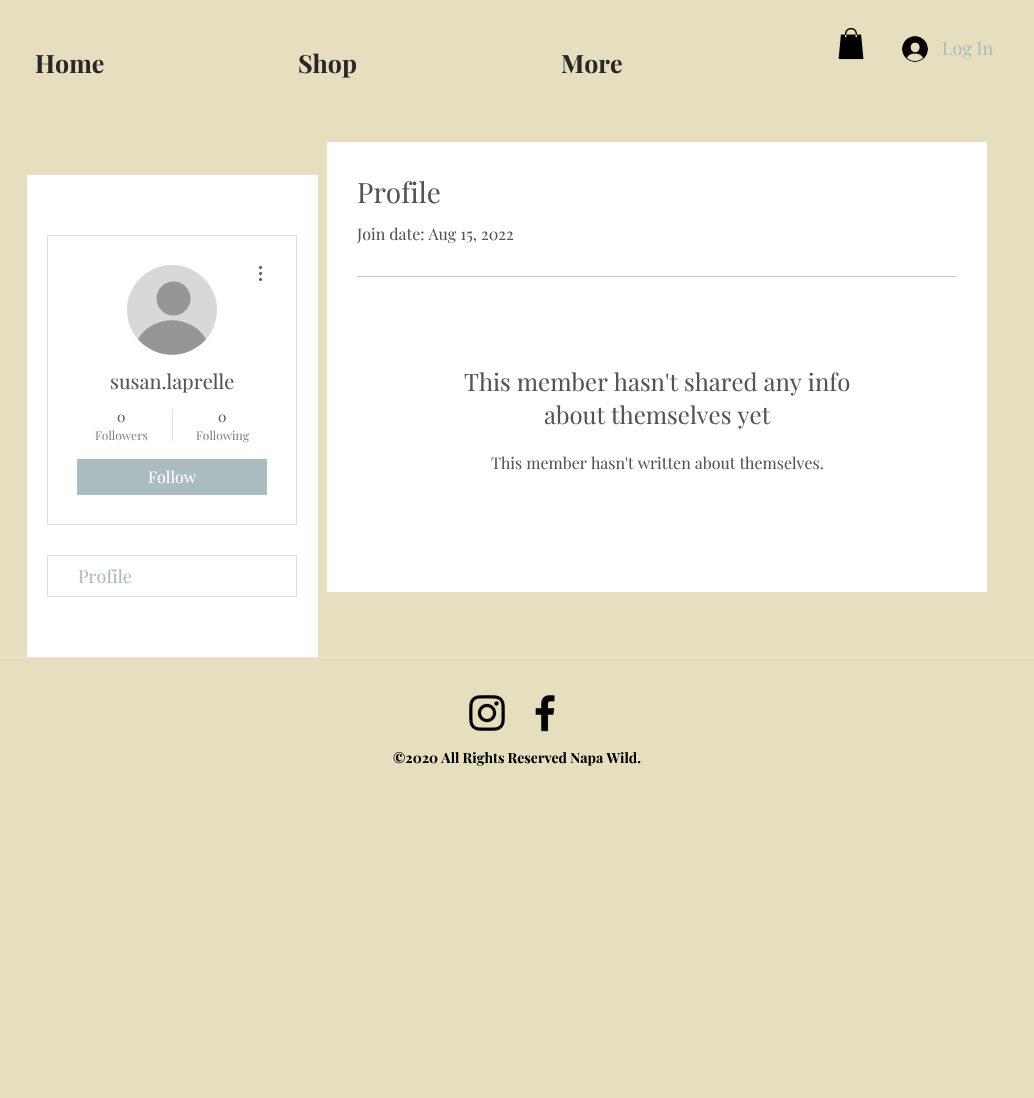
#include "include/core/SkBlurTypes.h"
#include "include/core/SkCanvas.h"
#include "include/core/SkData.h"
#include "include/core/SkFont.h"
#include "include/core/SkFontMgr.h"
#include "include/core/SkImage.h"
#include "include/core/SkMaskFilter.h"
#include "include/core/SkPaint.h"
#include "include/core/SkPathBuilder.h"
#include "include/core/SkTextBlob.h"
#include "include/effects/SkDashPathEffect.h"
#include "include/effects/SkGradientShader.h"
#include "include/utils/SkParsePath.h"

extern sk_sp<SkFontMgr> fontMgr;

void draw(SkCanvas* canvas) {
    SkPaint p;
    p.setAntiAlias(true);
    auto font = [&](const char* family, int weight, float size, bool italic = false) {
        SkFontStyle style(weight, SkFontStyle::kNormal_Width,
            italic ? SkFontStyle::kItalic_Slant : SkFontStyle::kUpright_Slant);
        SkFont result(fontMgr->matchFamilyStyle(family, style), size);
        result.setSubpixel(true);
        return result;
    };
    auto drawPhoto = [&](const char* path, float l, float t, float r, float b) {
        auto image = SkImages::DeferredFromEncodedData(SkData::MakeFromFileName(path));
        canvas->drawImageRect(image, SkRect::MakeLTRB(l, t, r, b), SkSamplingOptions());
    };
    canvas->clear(0xFFE5DFC0);
    drawPhoto("media/1.png", 838, 28, 864, 60);
    drawPhoto("media/2.png", 902, 36, 928, 62);
    auto font1 = font("Playfair Display", 400, 18);
    p.setColor(0xFFAABCBF);
    canvas->drawString("Log In", 942, 55, font1, p);
    auto font2 = font("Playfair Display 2", 700, 25);
    p.setColor(0xFF282626);
    {
        const struct { const char* s; float x, y; } items[] = {
            {"Home", 35, 73},
            {"Shop", 298, 73},
            {"More", 561, 73},
        };
        for (auto [s, x, y] : items) {
            canvas->drawString(s, x, y, font2, p);
        }
    }
    p.setColor(0xFFFFFFFF);
    canvas->drawRect(SkRect::MakeLTRB(27, 175, 318, 657), p);
    p.setStyle(SkPaint::kStroke_Style);
    p.setStrokeWidth(1);
    p.setColor(0xFFDDDDDD);
    canvas->drawRect(SkRect::MakeLTRB(47.5f, 235.5f, 296.5f, 524.5f), p);
    p.setStyle(SkPaint::kFill_Style);
    p.setColor(0xFFD8D8D8);
    canvas->drawCircle(172, 310, 45, p);
    p.setColor(0xFF969696);
    canvas->drawCircle(173.5f, 298.5f, 17, p);
    canvas->drawPath(SkPathBuilder().moveTo(206, 339).cubicTo(188, 360, 156, 360, 138, 339).cubicTo(153, 314, 191, 314, 206, 339).close().detach(), p);
    drawPhoto("media/3.png", 259, 266, 262, 281);
    auto font3 = font("Playfair Display", 400, 20);
    p.setColor(0xFF545454);
    canvas->drawString("susan.laprelle", 110, 389, font3, p);
    auto font4 = font("Playfair Display", 400, 14);
    canvas->drawString("0", 117, 422, font4, p);
    auto font5 = font("Playfair Display", 400, 12);
    p.setColor(0xFF878787);
    canvas->drawString("Followers", 95, 440, font5, p);
    p.setColor(0xFFDDDDDD);
    canvas->drawRect(SkRect::MakeLTRB(172, 409, 173, 441), p);
    p.setColor(0xFF545454);
    canvas->drawString("0", 218, 422, font4, p);
    p.setColor(0xFF878787);
    canvas->drawString("Following", 196, 440, font5, p);
    p.setColor(0xFFAABCBF);
    canvas->drawRect(SkRect::MakeLTRB(77, 459, 267, 495), p);
    auto font6 = font("Playfair Display", 400, 16);
    p.setColor(0xFFFFFFFF);
    canvas->drawString("Follow", 148, 483, font6, p);
    p.setStyle(SkPaint::kStroke_Style);
    p.setColor(0xFFDDDDDD);
    canvas->drawRect(SkRect::MakeLTRB(47.5f, 555.5f, 296.5f, 596.5f), p);
    p.setStyle(SkPaint::kFill_Style);
    p.setColor(0xFFAABCBF);
    canvas->drawString("Profile", 78, 583, font1, p);
    p.setColor(0xFFFFFFFF);
    canvas->drawRect(SkRect::MakeLTRB(327, 142, 987, 592), p);
    auto font7 = font("Playfair Display", 400, 28);
    p.setColor(0xFF545454);
    canvas->drawString("Profile", 357, 203, font7, p);
    canvas->drawString("Join date: Aug 15, 2022", 357, 240, font6, p);
    p.setColor(0xFFCCCCCC);
    canvas->drawRect(SkRect::MakeLTRB(357, 276, 957, 277), p);
    auto font8 = font("Playfair Display", 400, 24);
    p.setColor(0xFF545454);
    canvas->drawString("This member hasn't shared any info", 464, 391, font8, p);
    canvas->drawString("about themselves yet", 544, 424, font8, p);
    canvas->drawString("This member hasn't written about themselves.", 491, 469, font6, p);
    p.setColor(0xFFE9E4C9);
    canvas->drawRect(SkRect::MakeLTRB(0, 657, 1034, 658), p);
    drawPhoto("media/4.png", 469, 695, 505, 731);
    drawPhoto("media/5.png", 535, 695, 555, 732);
    auto font9 = font("Playfair Display", 700, 14);
    p.setColor(0xFF000000);
    canvas->drawString("©2020 All Rights Reserved Napa Wild.", 393, 763, font9, p);
}
